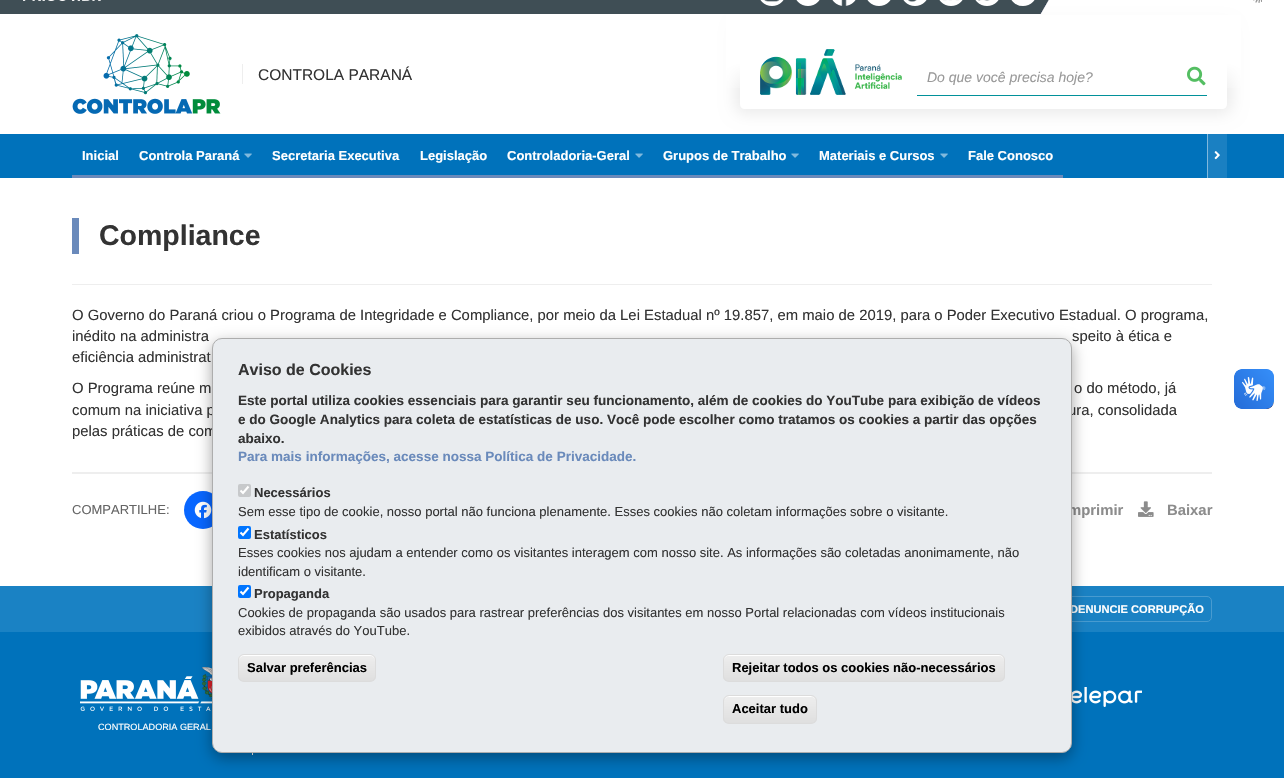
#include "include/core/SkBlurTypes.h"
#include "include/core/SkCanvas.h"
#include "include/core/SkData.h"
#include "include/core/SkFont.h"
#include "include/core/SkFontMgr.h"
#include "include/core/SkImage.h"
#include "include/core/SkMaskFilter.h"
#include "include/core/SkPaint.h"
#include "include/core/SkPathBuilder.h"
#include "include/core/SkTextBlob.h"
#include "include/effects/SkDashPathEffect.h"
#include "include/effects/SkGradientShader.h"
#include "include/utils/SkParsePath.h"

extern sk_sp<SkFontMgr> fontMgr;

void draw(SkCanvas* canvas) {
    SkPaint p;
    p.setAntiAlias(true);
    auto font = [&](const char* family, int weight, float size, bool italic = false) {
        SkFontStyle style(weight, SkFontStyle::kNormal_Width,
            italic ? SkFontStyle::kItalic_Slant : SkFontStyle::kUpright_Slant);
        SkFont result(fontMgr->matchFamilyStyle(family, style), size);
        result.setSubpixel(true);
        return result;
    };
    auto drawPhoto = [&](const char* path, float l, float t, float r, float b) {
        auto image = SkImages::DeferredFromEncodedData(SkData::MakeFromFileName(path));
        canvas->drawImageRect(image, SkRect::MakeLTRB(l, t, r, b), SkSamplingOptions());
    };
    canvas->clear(0xFF0072BB);
    p.setColor(0xFF3F4E55);
    canvas->drawRect(SkRect::MakeLTRB(0, 0, 1040, 14), p);
    drawPhoto("media/1.png", 1040, 0, 1284, 14);
    drawPhoto("media/2.png", 23, 0, 101, 1);
    drawPhoto("media/3.png", 760, 0, 784, 6);
    drawPhoto("media/4.png", 796, 0, 820, 6);
    drawPhoto("media/5.png", 832, 0, 856, 6);
    drawPhoto("media/6.png", 867, 0, 891, 6);
    drawPhoto("media/7.png", 903, 0, 927, 6);
    drawPhoto("media/8.png", 939, 0, 963, 6);
    drawPhoto("media/9.png", 975, 0, 999, 6);
    drawPhoto("media/10.png", 1011, 0, 1035, 6);
    drawPhoto("media/11.png", 1253, 0, 1262, 3);
    p.setColor(0xFFFFFFFF);
    canvas->drawRect(SkRect::MakeLTRB(0, 14, 1284, 134), p);
    drawPhoto("media/12.png", 72, 34, 221, 114);
    p.setColor(0xFFEEEEEE);
    canvas->drawRect(SkRect::MakeLTRB(242, 64, 243, 84), p);
    auto font1 = font("Liberation Sans", 400, 15.5f);
    p.setColor(0xFF333333);
    canvas->drawString("CONTROLA PARANÁ", 258, 80, font1, p);
    canvas->save();
    canvas->clipPath(SkPathBuilder(SkPathFillType::kEvenOdd).moveTo(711, 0).lineTo(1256, 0).lineTo(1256, 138).lineTo(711, 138).close().moveTo(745, 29).lineTo(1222, 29).cubicTo(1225, 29, 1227, 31, 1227, 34).lineTo(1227, 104).cubicTo(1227, 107, 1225, 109, 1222, 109).lineTo(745, 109).cubicTo(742, 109, 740, 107, 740, 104).lineTo(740, 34).cubicTo(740, 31, 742, 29, 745, 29).close().detach(), true);
    p.setColor(0x14000000);
    p.setMaskFilter(SkMaskFilter::MakeBlur(kNormal_SkBlurStyle, 7.5f));
    canvas->drawRoundRect(SkRect::MakeLTRB(735, 24, 1232, 114), 10, 10, p);
    p.setMaskFilter(nullptr);
    canvas->restore();
    {
        const SkColor colors[] = {0xFFFFFFFF, 0xFFFFFFFF, 0x00FFFFFF};
        const float stops[] = {0, 0.6f, 1};
        const SkPoint ends[] = {{993, 14}, {993, 94}};
        p.setShader(SkGradientShader::MakeLinear(ends, colors, stops, 3, SkTileMode::kClamp));
        p.setAlpha(255);
    }
    canvas->drawRect(SkRect::MakeLTRB(726, 15, 1241, 88), p);
    drawPhoto("media/13.png", 760, 49, 902, 95);
    p.setShader(nullptr);
    p.setColor(0xFF01919A);
    canvas->drawRect(SkRect::MakeLTRB(917, 95, 1207, 96), p);
    auto font2 = font("Liberation Sans", 400, 14, true);
    p.setColor(0xFF999999);
    canvas->drawString("Do que você precisa hoje?", 927, 82, font2, p);
    drawPhoto("media/14.png", 1187, 66, 1206, 86);
    auto font3 = font("Liberation Sans", 700, 13);
    p.setColor(0xFFFFFFFF);
    canvas->drawString("Inicial", 82, 160, font3, p);
    p.setColor(0xFF6A8ABB);
    canvas->drawRect(SkRect::MakeLTRB(72, 175, 1063, 178), p);
    p.setColor(0xFFFFFFFF);
    canvas->drawString("Controla Paraná", 139, 160, font3, p);
    drawPhoto("media/15.png", 244, 153, 252, 158);
    {
        const struct { const char* s; float x, y; } items[] = {
            {"Secretaria Executiva", 272, 160},
            {"Legislação", 420, 160},
            {"Controladoria-Geral", 507, 160},
        };
        for (auto [s, x, y] : items) {
            canvas->drawString(s, x, y, font3, p);
        }
    }
    drawPhoto("media/15.png", 635, 153, 643, 158);
    canvas->drawString("Grupos de Trabalho", 663, 160, font3, p);
    drawPhoto("media/15.png", 791, 153, 799, 158);
    canvas->drawString("Materiais e Cursos", 819, 160, font3, p);
    drawPhoto("media/15.png", 940, 153, 948, 158);
    canvas->drawString("Fale Conosco", 968, 160, font3, p);
    p.setColor(0xFF80B8DD);
    canvas->drawRect(SkRect::MakeLTRB(1207, 134, 1208, 178), p);
    p.setColor(0xFF1A80C2);
    canvas->drawRect(SkRect::MakeLTRB(1208, 134, 1227, 178), p);
    drawPhoto("media/16.png", 1214, 151, 1220, 160);
    p.setColor(0xFFFFFFFF);
    canvas->drawRect(SkRect::MakeLTRB(0, 178, 1284, 586), p);
    p.setColor(0xFF6A8ABB);
    canvas->drawRect(SkRect::MakeLTRB(72, 218, 79, 254), p);
    auto font4 = font("Liberation Sans", 700, 28.5f);
    p.setColor(0xFF333333);
    canvas->drawString("Compliance", 99, 245, font4, p);
    p.setColor(0xFFEEEEEE);
    canvas->drawRect(SkRect::MakeLTRB(72, 284, 1212, 285), p);
    auto font5 = font("Liberation Sans", 400, 14.85f);
    p.setColor(0xFF333333);
    {
        const struct { const char* s; float x, y; } items[] = {
            {"O Governo do Paraná criou o Programa de Integridade e Compliance, por meio da Lei Estadual nº 19.857, em maio de 2019, para o Poder Executivo Estadual. O programa,", 72, 320},
            {"inédito na administra", 72, 341},
            {"speito à ética e", 1072, 341},
            {"eficiência administrat", 72, 362},
            {"O Programa reúne m", 72, 393},
            {"o do método, já", 1074, 393},
            {"comum na iniciativa p", 72, 415},
            {"ura, consolidada", 1068, 415},
            {"pelas práticas de com", 72, 436},
        };
        for (auto [s, x, y] : items) {
            canvas->drawString(s, x, y, font5, p);
        }
    }
    p.setColor(0xFFEEEEEE);
    canvas->drawRect(SkRect::MakeLTRB(72, 472, 1212, 474), p);
    auto font6 = font("Liberation Sans", 400, 13);
    p.setColor(0xFF656565);
    canvas->drawString("COMPARTILHE:", 72, 514, font6, p);
    p.setColor(0xFF0866FF);
    canvas->drawCircle(203, 510, 19, p);
    drawPhoto("media/17.png", 194, 501, 212, 519);
    auto font7 = font("Liberation Sans", 700, 14.85f);
    p.setColor(0xFF8C8C8C);
    canvas->drawString("mprimir", 1068, 515, font7, p);
    drawPhoto("media/18.png", 1138, 501, 1154, 517);
    canvas->drawString("Baixar", 1167, 515, font7, p);
    drawPhoto("media/19.png", 1234, 369, 1274, 409);
    drawPhoto("media/20.png", 1234, 369, 1274, 409);
    p.setColor(0xFF1A82C4);
    canvas->drawRect(SkRect::MakeLTRB(0, 586, 1284, 632), p);
    p.setStyle(SkPaint::kStroke_Style);
    p.setStrokeWidth(1);
    p.setColor(0xFF489BD0);
    canvas->drawRoundRect(SkRect::MakeLTRB(1045.5f, 596.5f, 1211.5f, 621.5f), 4.5f, 4.5f, p);
    auto font8 = font("Liberation Sans", 700, 11.1f);
    p.setStyle(SkPaint::kFill_Style);
    p.setColor(0xFFFFFFFF);
    canvas->drawString("DENUNCIE CORRUPÇÃO", 1070, 613, font8, p);
    drawPhoto("media/21.png", 1072, 687, 1142, 707);
    drawPhoto("media/22.png", 80, 667, 212, 711);
    auto font9 = font("Liberation Sans", 400, 9.1f);
    canvas->drawString("CONTROLADORIA GERAL", 98, 730, font9, p);
    canvas->drawRect(SkRect::MakeLTRB(252, 753, 253, 755), p);
    p.setColor(0x59000000);
    p.setMaskFilter(SkMaskFilter::MakeBlur(kNormal_SkBlurStyle, 7.5f));
    canvas->drawRoundRect(SkRect::MakeLTRB(212, 343, 1072, 758), 10, 10, p);
    p.setMaskFilter(nullptr);
    p.setColor(0xFFE9ECEF);
    canvas->drawRoundRect(SkRect::MakeLTRB(212.5f, 338.5f, 1071.5f, 752.5f), 9.5f, 9.5f, p);
    p.setStyle(SkPaint::kStroke_Style);
    p.setColor(0xFFADADAD);
    canvas->drawRoundRect(SkRect::MakeLTRB(212.5f, 338.5f, 1071.5f, 752.5f), 9.5f, 9.5f, p);
    auto font10 = font("Liberation Sans", 700, 16);
    p.setStyle(SkPaint::kFill_Style);
    p.setColor(0xFF333333);
    canvas->drawString("Aviso de Cookies", 238, 375, font10, p);
    auto font11 = font("Liberation Sans", 700, 13.52f);
    {
        const struct { const char* s; float x, y; } items[] = {
            {"Este portal utiliza cookies essenciais para garantir seu funcionamento, além de cookies do YouTube para exibição de vídeos", 238, 405},
            {"e do Google Analytics para coleta de estatísticas de uso. Você pode escolher como tratamos os cookies a partir das opções", 238, 424},
            {"abaixo.", 238, 443},
        };
        for (auto [s, x, y] : items) {
            canvas->drawString(s, x, y, font11, p);
        }
    }
    p.setColor(0xFF6A8ABB);
    canvas->drawString("Para mais informações, acesse nossa Política de Privacidade.", 238, 461, font11, p);
    p.setColor(0xFFC7C9CB);
    canvas->drawRoundRect(SkRect::MakeLTRB(238, 484, 251, 497), 2, 2, p);
    p.setStyle(SkPaint::kStroke_Style);
    p.setStrokeWidth(2.1f);
    p.setColor(0xFFFFFFFF);
    canvas->drawPath(SkPathBuilder().moveTo(240.5f, 490.5f).lineTo(243, 493).lineTo(248.5f, 486.5f).detach(), p);
    p.setStyle(SkPaint::kFill_Style);
    p.setColor(0xFF333333);
    canvas->drawString("Necessários", 254, 497, font3, p);
    canvas->drawString("Sem esse tipo de cookie, nosso portal não funciona plenamente. Esses cookies não coletam informações sobre o visitante.", 238, 516, font6, p);
    p.setColor(0xFF0075FF);
    canvas->drawRoundRect(SkRect::MakeLTRB(238, 526, 251, 539), 2, 2, p);
    p.setStyle(SkPaint::kStroke_Style);
    p.setColor(0xFFFFFFFF);
    canvas->drawPath(SkPathBuilder().moveTo(240.5f, 532.5f).lineTo(243, 535).lineTo(248.5f, 528.5f).detach(), p);
    p.setStyle(SkPaint::kFill_Style);
    p.setColor(0xFF333333);
    canvas->drawString("Estatísticos", 254, 539, font3, p);
    canvas->drawString("Esses cookies nos ajudam a entender como os visitantes interagem com nosso site. As informações são coletadas anonimamente, não", 238, 557, font6, p);
    canvas->drawString("identificam o visitante.", 238, 576, font6, p);
    p.setColor(0xFF0075FF);
    canvas->drawRoundRect(SkRect::MakeLTRB(238, 585, 251, 598), 2, 2, p);
    p.setStyle(SkPaint::kStroke_Style);
    p.setColor(0xFFFFFFFF);
    canvas->drawPath(SkPathBuilder().moveTo(240.5f, 591.5f).lineTo(243, 594).lineTo(248.5f, 587.5f).detach(), p);
    p.setStyle(SkPaint::kFill_Style);
    p.setColor(0xFF333333);
    canvas->drawString("Propaganda", 254, 598, font3, p);
    canvas->drawString("Cookies de propaganda são usados para rastrear preferências dos visitantes em nosso Portal relacionadas com vídeos institucionais", 238, 617, font6, p);
    canvas->drawString("exibidos através do YouTube.", 238, 635, font6, p);
    canvas->save();
    canvas->clipPath(SkPathBuilder().moveTo(244, 654).lineTo(370, 654).cubicTo(373.5f, 654, 376, 656.5f, 376, 660).lineTo(376, 676).cubicTo(376, 679.5f, 373.5f, 682, 370, 682).lineTo(244, 682).cubicTo(240.5f, 682, 238, 679.5f, 238, 676).lineTo(238, 660).cubicTo(238, 656.5f, 240.5f, 654, 244, 654).close().detach(), true);
    {
        const SkColor colors[] = {0xFFEDEDED, 0xFFDFDFDF};
        const float stops[] = {0.05f, 1};
        const SkPoint ends[] = {{307, 655}, {307, 681}};
        p.setShader(SkGradientShader::MakeLinear(ends, colors, stops, 2, SkTileMode::kClamp));
        p.setAlpha(255);
    }
    canvas->drawRect(SkRect::MakeLTRB(238, 655, 376, 681), p);
    canvas->restore();
    p.setShader(nullptr);
    p.setColor(0xFFFFFFFF);
    canvas->drawPath(SkPathBuilder().moveTo(244, 656).lineTo(370, 656).cubicTo(373, 656, 375, 658, 375, 661).lineTo(375, 660).cubicTo(375, 657, 373, 655, 370, 655).lineTo(244, 655).cubicTo(241, 655, 239, 657, 239, 660).lineTo(239, 661).cubicTo(239, 658, 241, 656, 244, 656).close().detach(), p);
    p.setStyle(SkPaint::kStroke_Style);
    p.setStrokeWidth(1);
    p.setColor(0xFFDCDCDC);
    canvas->drawRoundRect(SkRect::MakeLTRB(238.5f, 654.5f, 375.5f, 681.5f), 5.5f, 5.5f, p);
    p.setStyle(SkPaint::kFill_Style);
    p.setColor(0xFF000000);
    canvas->drawString("Salvar preferências", 247, 672, font3, p);
    canvas->save();
    canvas->clipPath(SkPathBuilder().moveTo(729, 654).lineTo(999, 654).cubicTo(1002.5f, 654, 1005, 656.5f, 1005, 660).lineTo(1005, 676).cubicTo(1005, 679.5f, 1002.5f, 682, 999, 682).lineTo(729, 682).cubicTo(725.5f, 682, 723, 679.5f, 723, 676).lineTo(723, 660).cubicTo(723, 656.5f, 725.5f, 654, 729, 654).close().detach(), true);
    {
        const SkColor colors[] = {0xFFEDEDED, 0xFFDFDFDF};
        const float stops[] = {0.05f, 1};
        const SkPoint ends[] = {{864, 655}, {864, 681}};
        p.setShader(SkGradientShader::MakeLinear(ends, colors, stops, 2, SkTileMode::kClamp));
        p.setAlpha(255);
    }
    canvas->drawRect(SkRect::MakeLTRB(723, 655, 1005, 681), p);
    canvas->restore();
    p.setShader(nullptr);
    p.setColor(0xFFFFFFFF);
    canvas->drawPath(SkPathBuilder().moveTo(729, 656).lineTo(999, 656).cubicTo(1002, 656, 1004, 658, 1004, 661).lineTo(1004, 660).cubicTo(1004, 657, 1002, 655, 999, 655).lineTo(729, 655).cubicTo(726, 655, 724, 657, 724, 660).lineTo(724, 661).cubicTo(724, 658, 726, 656, 729, 656).close().detach(), p);
    p.setStyle(SkPaint::kStroke_Style);
    p.setColor(0xFFDCDCDC);
    canvas->drawRoundRect(SkRect::MakeLTRB(723.5f, 654.5f, 1004.5f, 681.5f), 5.5f, 5.5f, p);
    p.setStyle(SkPaint::kFill_Style);
    p.setColor(0xFF000000);
    canvas->drawString("Rejeitar todos os cookies não-necessários", 732, 672, font3, p);
    canvas->save();
    canvas->clipPath(SkPathBuilder().moveTo(729, 695).lineTo(811, 695).cubicTo(814.5f, 695, 817, 697.5f, 817, 701).lineTo(817, 718).cubicTo(817, 721.5f, 814.5f, 724, 811, 724).lineTo(729, 724).cubicTo(725.5f, 724, 723, 721.5f, 723, 718).lineTo(723, 701).cubicTo(723, 697.5f, 725.5f, 695, 729, 695).close().detach(), true);
    {
        const SkColor colors[] = {0xFFEDEDED, 0xFFDFDFDF};
        const float stops[] = {0.05f, 1};
        const SkPoint ends[] = {{770, 696}, {770, 723}};
        p.setShader(SkGradientShader::MakeLinear(ends, colors, stops, 2, SkTileMode::kClamp));
        p.setAlpha(255);
    }
    canvas->drawRect(SkRect::MakeLTRB(723, 696, 817, 723), p);
    canvas->restore();
    p.setShader(nullptr);
    p.setColor(0xFFFFFFFF);
    canvas->drawPath(SkPathBuilder().moveTo(729, 697).lineTo(811, 697).cubicTo(814, 697, 816, 699, 816, 702).cubicTo(816, 693, 803, 696, 797, 696).lineTo(743, 696).cubicTo(737, 696, 724, 693, 724, 702).cubicTo(724, 699, 726, 697, 729, 697).close().detach(), p);
    p.setStyle(SkPaint::kStroke_Style);
    p.setColor(0xFFDCDCDC);
    canvas->drawRoundRect(SkRect::MakeLTRB(723.5f, 695.5f, 816.5f, 723.5f), 5.5f, 5.5f, p);
    p.setStyle(SkPaint::kFill_Style);
    p.setColor(0xFF000000);
    canvas->drawString("Aceitar tudo", 732, 713, font3, p);
}
